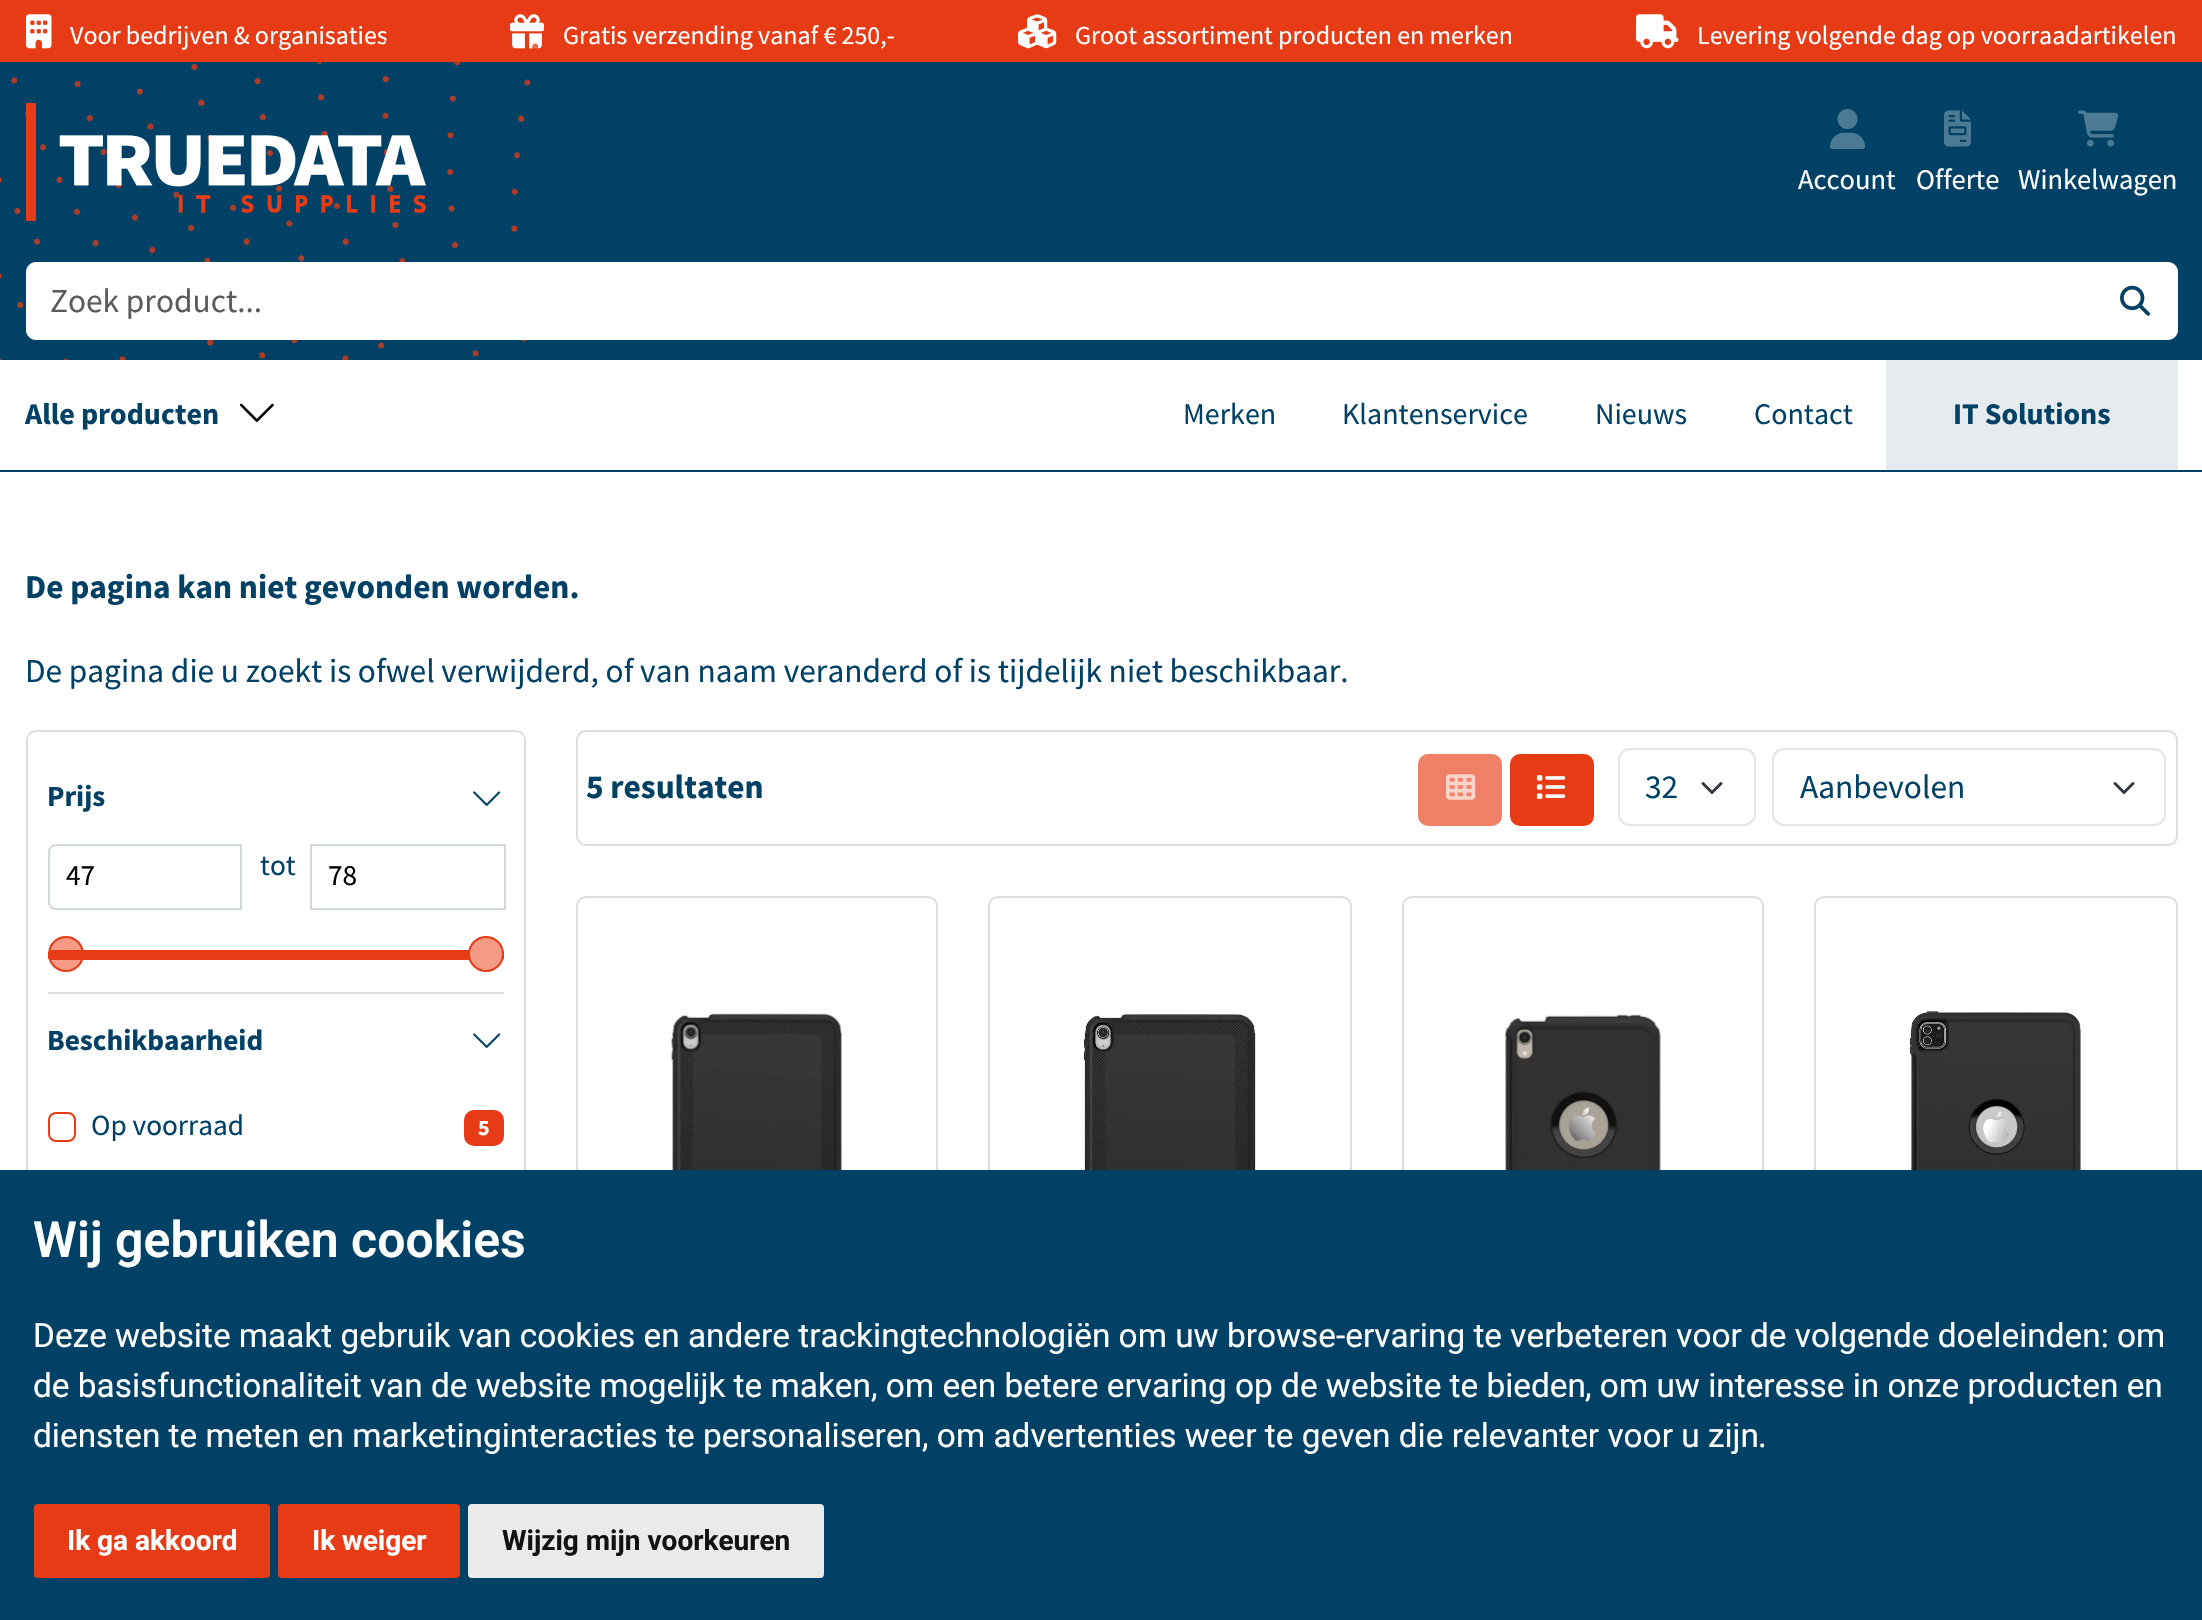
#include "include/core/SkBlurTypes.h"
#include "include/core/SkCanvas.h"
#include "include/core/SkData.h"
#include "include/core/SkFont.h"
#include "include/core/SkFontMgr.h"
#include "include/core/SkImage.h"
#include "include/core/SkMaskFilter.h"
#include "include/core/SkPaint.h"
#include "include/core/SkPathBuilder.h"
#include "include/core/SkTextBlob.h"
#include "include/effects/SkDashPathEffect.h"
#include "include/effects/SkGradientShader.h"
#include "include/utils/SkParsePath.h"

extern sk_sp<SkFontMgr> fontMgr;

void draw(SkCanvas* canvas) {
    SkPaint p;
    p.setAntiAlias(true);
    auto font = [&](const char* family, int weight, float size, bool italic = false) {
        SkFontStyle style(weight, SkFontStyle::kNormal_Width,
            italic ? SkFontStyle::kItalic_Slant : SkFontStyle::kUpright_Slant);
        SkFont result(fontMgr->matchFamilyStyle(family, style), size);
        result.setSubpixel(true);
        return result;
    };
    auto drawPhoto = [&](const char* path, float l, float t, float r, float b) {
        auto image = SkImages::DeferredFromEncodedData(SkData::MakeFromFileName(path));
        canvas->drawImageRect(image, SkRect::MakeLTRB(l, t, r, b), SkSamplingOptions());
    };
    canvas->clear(0xFFFFFFFF);
    p.setColor(0xFF004165);
    canvas->drawRect(SkRect::MakeLTRB(0, 62, 2202, 360), p);
    p.setColor(0xFFE63B14);
    canvas->drawRect(SkRect::MakeLTRB(0, 0, 2202, 62), p);
    drawPhoto("media/1.png", 26, 14, 52, 49);
    auto font1 = font("Source Sans Pro", 400, 26);
    p.setColor(0xFFFFFFFF);
    canvas->drawString("Voor bedrijven & organisaties", 70, 44, font1, p);
    drawPhoto("media/2.png", 510, 14, 544, 49);
    canvas->drawString("Gratis verzending vanaf € 250,-", 563, 44, font1, p);
    drawPhoto("media/3.png", 1018, 14, 1057, 49);
    canvas->drawString("Groot assortiment producten en merken", 1075, 44, font1, p);
    drawPhoto("media/4.png", 1636, 14, 1679, 49);
    canvas->drawString("Levering volgende dag op voorraadartikelen", 1697, 44, font1, p);
    drawPhoto("media/5.png", 0, 26, 539, 360);
    drawPhoto("media/6.png", 26, 103, 426, 221);
    drawPhoto("media/7.png", 1830, 109, 1865, 149);
    auto font2 = font("Source Sans Pro", 400, 28.5f);
    canvas->drawString("Account", 1798, 189, font2, p);
    drawPhoto("media/8.png", 1944, 110, 1971, 147);
    canvas->drawString("Offerte", 1916, 189, font2, p);
    drawPhoto("media/9.png", 2078, 110, 2119, 147);
    canvas->drawString("Winkelwagen", 2018, 189, font2, p);
    canvas->drawPath(SkPathBuilder().moveTo(36, 262).lineTo(2094, 262).lineTo(2094, 340).lineTo(36, 340).cubicTo(30.5f, 340, 26, 335.5f, 26, 330).lineTo(26, 272).cubicTo(26, 266.5f, 30.5f, 262, 36, 262).close().detach(), p);
    auto font3 = font("Source Sans Pro", 400, 33.37f);
    p.setColor(0xFF595C5F);
    canvas->drawString("Zoek product...", 50, 312, font3, p);
    p.setColor(0xFFFFFFFF);
    canvas->drawPath(SkPathBuilder().moveTo(2094, 262).lineTo(2168, 262).cubicTo(2173.5f, 262, 2178, 266.5f, 2178, 272).lineTo(2178, 330).cubicTo(2178, 335.5f, 2173.5f, 340, 2168, 340).lineTo(2094, 340).close().detach(), p);
    drawPhoto("media/10.png", 2120, 285, 2150, 316);
    p.setColor(0xFF004165);
    canvas->drawRect(SkRect::MakeLTRB(0, 470, 2202, 472), p);
    auto font4 = font("Source Sans Pro", 700, 30);
    canvas->drawString("Alle producten", 25, 424, font4, p);
    drawPhoto("media/11.png", 239, 403, 274, 422);
    auto font5 = font("Source Sans Pro", 400, 30);
    {
        const struct { const char* s; float x, y; } items[] = {
            {"Merken", 1183, 424},
            {"Klantenservice", 1342, 424},
            {"Nieuws", 1595, 424},
            {"Contact", 1754, 424},
        };
        for (auto [s, x, y] : items) {
            canvas->drawString(s, x, y, font5, p);
        }
    }
    p.setColor(0xFFE5EBEF);
    canvas->drawRect(SkRect::MakeLTRB(1886, 360, 2178, 470), p);
    p.setColor(0xFF004165);
    canvas->drawString("IT Solutions", 1953, 424, font4, p);
    auto font6 = font("Source Sans Pro", 700, 33.37f);
    canvas->drawString("De pagina kan niet gevonden worden.", 25, 598, font6, p);
    canvas->drawString("De pagina die u zoekt is ofwel verwijderd, of van naam veranderd of is tijdelijk niet beschikbaar.", 25, 682, font3, p);
    p.setStyle(SkPaint::kStroke_Style);
    p.setStrokeWidth(2);
    p.setColor(0xFFDEDEDE);
    canvas->drawRoundRect(SkRect::MakeLTRB(27, 731, 525, 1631), 9, 9, p);
    p.setStyle(SkPaint::kFill_Style);
    canvas->drawRect(SkRect::MakeLTRB(48, 992, 504, 994), p);
    auto font7 = font("Source Sans Pro", 700, 29.25f);
    p.setColor(0xFF004165);
    canvas->drawString("Prijs", 47, 806, font7, p);
    drawPhoto("media/12.png", 473, 791, 501, 806);
    p.setStyle(SkPaint::kStroke_Style);
    p.setColor(0xFFD0D7DE);
    canvas->drawPath(SkPathBuilder().moveTo(56, 845).lineTo(241, 845).lineTo(241, 909).lineTo(56, 909).cubicTo(52, 909, 49, 906, 49, 902).lineTo(49, 852).cubicTo(49, 848, 52, 845, 56, 845).close().detach(), p);
    auto font8 = font("Source Sans Pro", 400, 29.25f);
    p.setStyle(SkPaint::kFill_Style);
    p.setColor(0xFF000000);
    canvas->drawString("47", 66, 885, font8, p);
    p.setColor(0xFF004165);
    canvas->drawString("tot", 260, 875, font8, p);
    p.setStyle(SkPaint::kStroke_Style);
    p.setColor(0xFFD0D7DE);
    canvas->drawRect(SkRect::MakeLTRB(311, 845, 505, 909), p);
    p.setStyle(SkPaint::kFill_Style);
    p.setColor(0xFF000000);
    canvas->drawString("78", 328, 885, font8, p);
    p.setColor(0xFFF49A85);
    canvas->drawCircle(66, 954, 17, p);
    p.setStyle(SkPaint::kStroke_Style);
    p.setColor(0xFFE63B14);
    canvas->drawCircle(66, 954, 17, p);
    p.setStyle(SkPaint::kFill_Style);
    p.setColor(0xFFFFFFFF);
    canvas->drawRect(SkRect::MakeLTRB(48, 950, 84, 960), p);
    p.setColor(0xFFE63B14);
    canvas->drawRoundRect(SkRect::MakeLTRB(48, 950, 504, 960), 2, 2, p);
    p.setColor(0xFFF49A85);
    canvas->drawCircle(486, 954, 17, p);
    p.setStyle(SkPaint::kStroke_Style);
    p.setColor(0xFFE63B14);
    canvas->drawCircle(486, 954, 17, p);
    p.setStyle(SkPaint::kFill_Style);
    p.setColor(0xFF004165);
    canvas->drawString("Beschikbaarheid", 47, 1050, font7, p);
    drawPhoto("media/12.png", 473, 1033, 501, 1048);
    p.setStyle(SkPaint::kStroke_Style);
    p.setColor(0xFFE63B14);
    canvas->drawRoundRect(SkRect::MakeLTRB(49, 1113, 75, 1141), 7, 7, p);
    p.setStyle(SkPaint::kFill_Style);
    p.setColor(0xFF004165);
    canvas->drawString("Op voorraad", 91, 1135, font8, p);
    p.setColor(0xFFE63B14);
    canvas->drawRoundRect(SkRect::MakeLTRB(464, 1110, 504, 1146), 10, 10, p);
    auto font9 = font("Source Sans Pro", 700, 22);
    p.setColor(0xFFFFFFFF);
    canvas->drawString("5", 478, 1135, font9, p);
    p.setStyle(SkPaint::kStroke_Style);
    p.setColor(0xFFDEDEDE);
    canvas->drawRoundRect(SkRect::MakeLTRB(577, 731, 2177, 845), 9, 9, p);
    p.setStyle(SkPaint::kFill_Style);
    p.setColor(0xFF004165);
    canvas->drawString("5 resultaten", 586, 798, font6, p);
    p.setColor(0xFFEF8066);
    canvas->drawRoundRect(SkRect::MakeLTRB(1419, 755, 1501, 825), 9, 9, p);
    p.setStyle(SkPaint::kStroke_Style);
    canvas->drawRoundRect(SkRect::MakeLTRB(1419, 755, 1501, 825), 9, 9, p);
    drawPhoto("media/13.png", 1446, 774, 1476, 800);
    p.setStyle(SkPaint::kFill_Style);
    p.setColor(0xFFE63B14);
    canvas->drawRoundRect(SkRect::MakeLTRB(1511, 755, 1593, 825), 9, 9, p);
    p.setStyle(SkPaint::kStroke_Style);
    canvas->drawRoundRect(SkRect::MakeLTRB(1511, 755, 1593, 825), 9, 9, p);
    drawPhoto("media/14.png", 1536, 775, 1566, 799);
    p.setStrokeWidth(3);
    p.setStrokeCap(SkPaint::kRound_Cap);
    p.setStrokeJoin(SkPaint::kRound_Join);
    p.setColor(0xFF343A40);
    canvas->drawPath(SkPathBuilder().moveTo(1703, 783.5f).lineTo(1712, 792.5f).lineTo(1721, 783.5f).detach(), p);
    p.setStrokeWidth(2);
    p.setStrokeCap(SkPaint::kButt_Cap);
    p.setStrokeJoin(SkPaint::kMiter_Join);
    p.setColor(0xFFE5E5E5);
    canvas->drawRoundRect(SkRect::MakeLTRB(1619, 749, 1755, 825), 11, 11, p);
    p.setStyle(SkPaint::kFill_Style);
    p.setColor(0xFF004165);
    canvas->drawString("32", 1645, 798, font3, p);
    p.setStyle(SkPaint::kStroke_Style);
    p.setStrokeWidth(3);
    p.setStrokeCap(SkPaint::kRound_Cap);
    p.setStrokeJoin(SkPaint::kRound_Join);
    p.setColor(0xFF343A40);
    canvas->drawPath(SkPathBuilder().moveTo(2115, 783.5f).lineTo(2124, 792.5f).lineTo(2133, 783.5f).detach(), p);
    p.setStrokeWidth(2);
    p.setStrokeCap(SkPaint::kButt_Cap);
    p.setStrokeJoin(SkPaint::kMiter_Join);
    p.setColor(0xFFE5E5E5);
    canvas->drawRoundRect(SkRect::MakeLTRB(1773, 749, 2165, 825), 11, 11, p);
    p.setStyle(SkPaint::kFill_Style);
    p.setColor(0xFF004165);
    canvas->drawString("Aanbevolen", 1800, 798, font3, p);
    p.setStyle(SkPaint::kStroke_Style);
    p.setColor(0xFFDEDEDE);
    canvas->drawRoundRect(SkRect::MakeLTRB(577, 897, 937, 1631), 9, 9, p);
    drawPhoto("media/15.png", 608, 1013, 842, 1170);
    canvas->drawRoundRect(SkRect::MakeLTRB(989, 897, 1351, 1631), 9, 9, p);
    drawPhoto("media/16.png", 1020, 1014, 1256, 1170);
    canvas->drawRoundRect(SkRect::MakeLTRB(1403, 897, 1763, 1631), 9, 9, p);
    drawPhoto("media/17.png", 1434, 1014, 1661, 1170);
    canvas->drawRoundRect(SkRect::MakeLTRB(1815, 897, 2177, 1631), 9, 9, p);
    drawPhoto("media/18.png", 1846, 1010, 2082, 1170);
    p.setStyle(SkPaint::kFill_Style);
    p.setColor(0xFF004165);
    canvas->drawRect(SkRect::MakeLTRB(0, 1170, 2202, 1620), p);
    auto font10 = font("Roboto", 600, 50);
    p.setColor(0xFFFFFFFF);
    canvas->drawString("Wij gebruiken cookies", 33, 1257, font10, p);
    auto font11 = font("Roboto", 400, 33.37f);
    {
        const struct { const char* s; float x, y; } items[] = {
            {"Deze website maakt gebruik van cookies en andere trackingtechnologiën om uw browse-ervaring te verbeteren voor de volgende doeleinden: om", 33, 1347},
            {"de basisfunctionaliteit van de website mogelijk te maken", 33, 1397},
            {", om een betere ervaring op de website te bieden", 871, 1397},
            {", om uw interesse in onze producten en", 1585, 1397},
            {"diensten te meten en marketinginteracties te personaliseren", 33, 1447},
            {", om advertenties weer te geven die relevanter voor u zijn", 922, 1447},
            {".", 1758, 1447},
        };
        for (auto [s, x, y] : items) {
            canvas->drawString(s, x, y, font11, p);
        }
    }
    p.setColor(0xFFE63B14);
    canvas->drawRoundRect(SkRect::MakeLTRB(34, 1504, 270, 1578), 4, 4, p);
    auto font12 = font("Roboto", 700, 28);
    p.setColor(0xFFFFFFFF);
    canvas->drawString("Ik ga akkoord", 67, 1550, font12, p);
    p.setColor(0xFFE63B14);
    canvas->drawRoundRect(SkRect::MakeLTRB(278, 1504, 460, 1578), 4, 4, p);
    p.setColor(0xFFFFFFFF);
    canvas->drawString("Ik weiger", 312, 1550, font12, p);
    p.setColor(0xFFEAEAEA);
    canvas->drawRoundRect(SkRect::MakeLTRB(468, 1504, 824, 1578), 4, 4, p);
    p.setColor(0xFF111111);
    canvas->drawString("Wijzig mijn voorkeuren", 502, 1550, font12, p);
}
